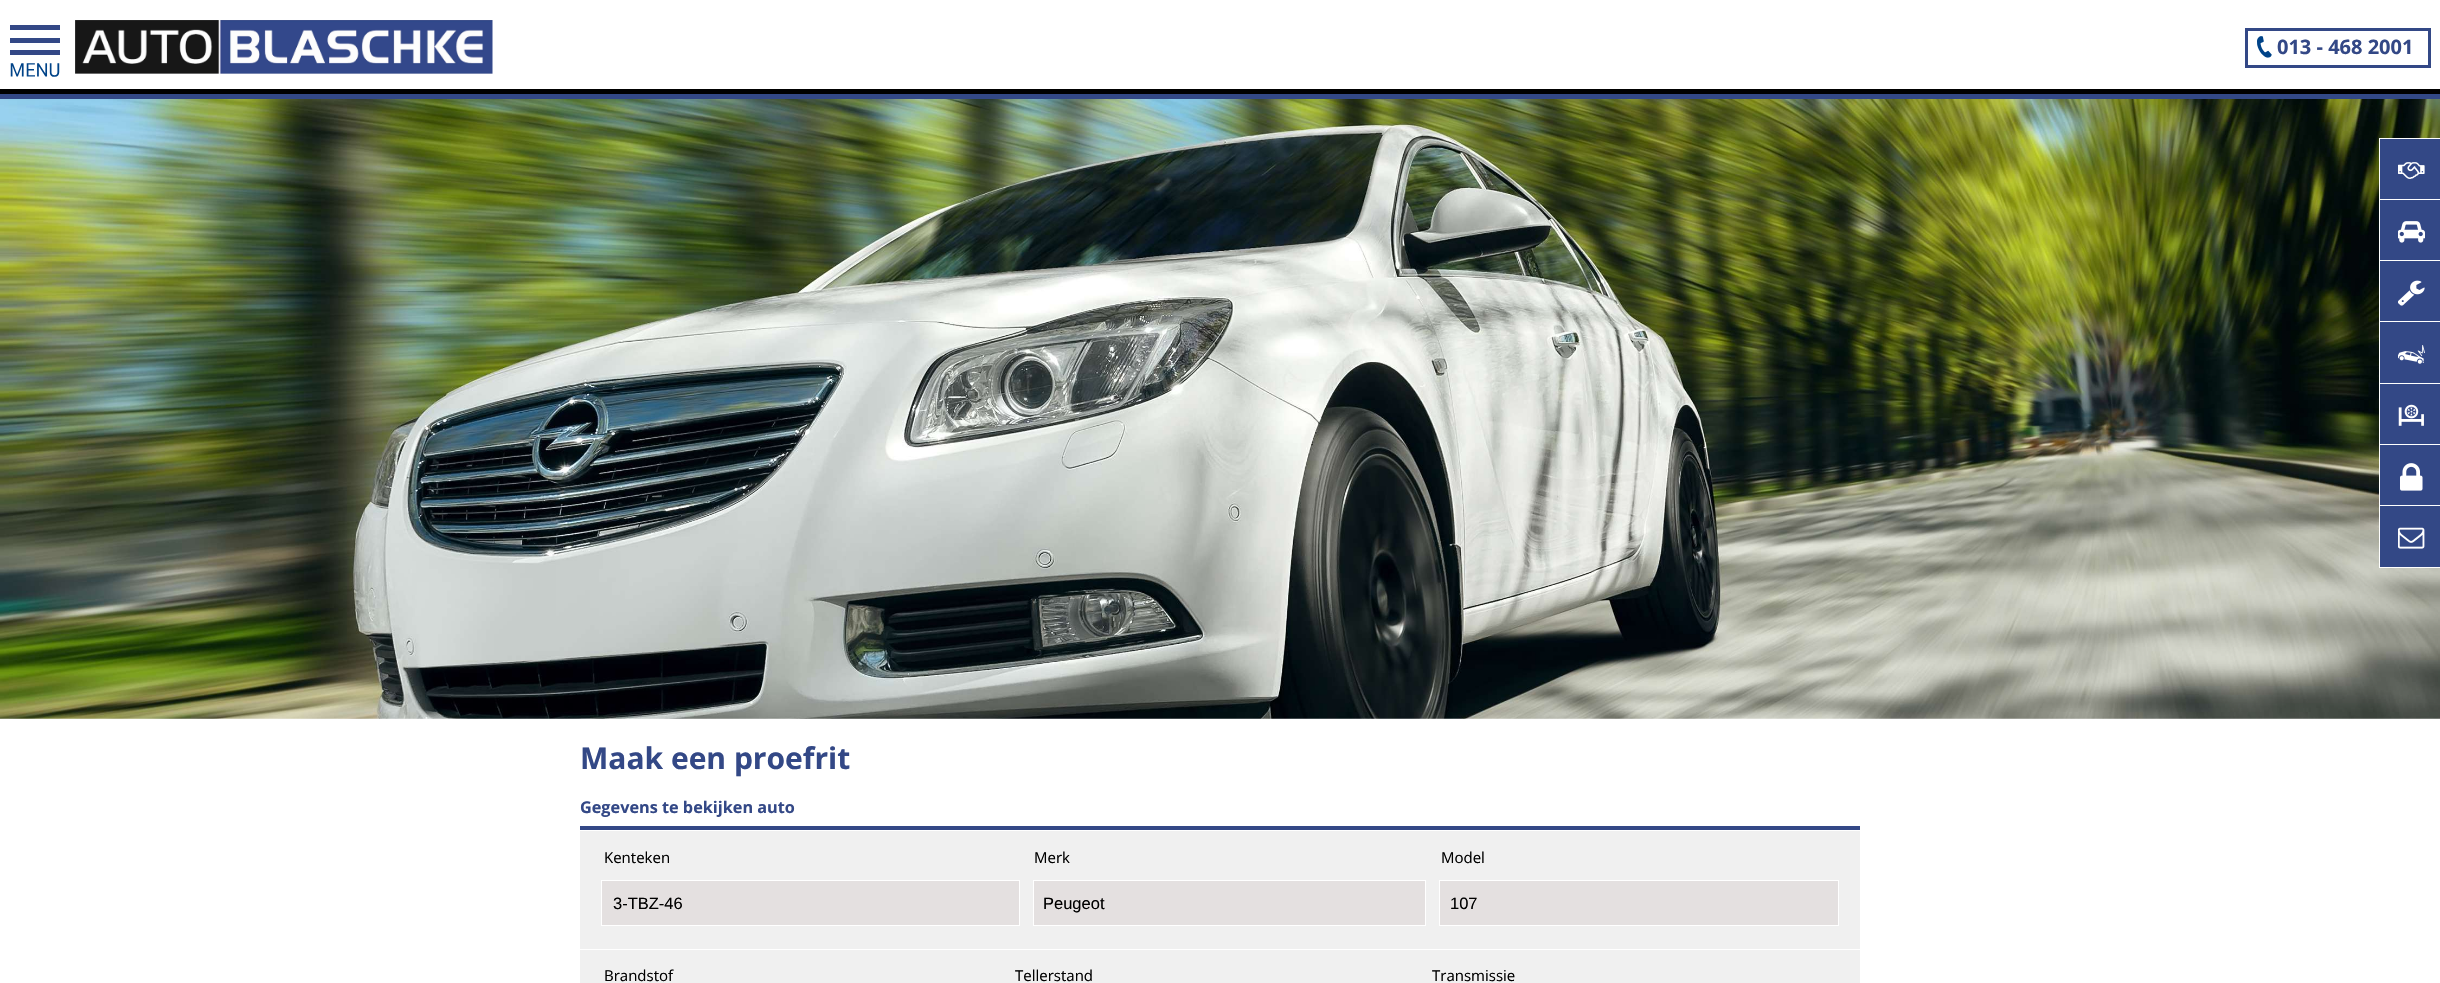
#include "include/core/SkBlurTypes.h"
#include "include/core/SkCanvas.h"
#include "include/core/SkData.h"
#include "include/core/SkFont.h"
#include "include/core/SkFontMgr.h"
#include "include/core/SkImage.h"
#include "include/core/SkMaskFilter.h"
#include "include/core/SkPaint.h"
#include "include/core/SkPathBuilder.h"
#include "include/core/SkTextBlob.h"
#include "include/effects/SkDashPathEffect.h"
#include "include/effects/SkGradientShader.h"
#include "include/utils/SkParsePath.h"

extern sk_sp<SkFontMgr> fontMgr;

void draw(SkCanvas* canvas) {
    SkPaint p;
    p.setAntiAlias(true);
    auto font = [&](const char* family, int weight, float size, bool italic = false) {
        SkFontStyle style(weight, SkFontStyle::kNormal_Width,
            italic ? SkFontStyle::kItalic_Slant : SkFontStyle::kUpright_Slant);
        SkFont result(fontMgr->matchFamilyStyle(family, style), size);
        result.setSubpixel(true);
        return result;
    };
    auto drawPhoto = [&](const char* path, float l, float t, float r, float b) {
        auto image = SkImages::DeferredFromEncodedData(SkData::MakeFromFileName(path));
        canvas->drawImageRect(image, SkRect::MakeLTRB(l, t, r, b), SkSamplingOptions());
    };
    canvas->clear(0xFFFFFFFF);
    {
        const struct { float l, t, r, b; SkColor color; } items[] = {
            {0, 89, 2440, 94, 0xFF000000},
            {10, 38, 60, 43, 0xFF334886},
            {10, 25, 60, 30, 0xFF334886},
            {10, 50, 60, 55, 0xFF334886},
        };
        for (auto [l, t, r, b, color] : items) {
            p.setColor(color);
            canvas->drawRect(SkRect::MakeLTRB(l, t, r, b), p);
        }
    }
    drawPhoto("media/1.png", 10, 63, 60, 77);
    drawPhoto("media/2.png", 75, 20, 493, 74);
    drawPhoto("media/3.png", 2257, 36, 2272, 58);
    p.setStyle(SkPaint::kStroke_Style);
    p.setStrokeWidth(3);
    canvas->drawRect(SkRect::MakeLTRB(2246.5f, 29.5f, 2429.5f, 66.5f), p);
    auto font1 = font("Open Sans", 700, 20);
    p.setStyle(SkPaint::kFill_Style);
    canvas->drawString("013 - 468 2001", 2277, 54, font1, p);
    canvas->drawRect(SkRect::MakeLTRB(0, 94, 2440, 99), p);
    drawPhoto("media/11.png", 0, 99, 2440, 719);
    canvas->drawRect(SkRect::MakeLTRB(2379.5f, 138.5f, 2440.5f, 199.5f), p);
    p.setStyle(SkPaint::kStroke_Style);
    p.setStrokeWidth(1);
    p.setColor(0xFFFFFFFF);
    canvas->drawRect(SkRect::MakeLTRB(2379.5f, 138.5f, 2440.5f, 199.5f), p);
    drawPhoto("media/4.png", 2398, 162, 2425, 179);
    p.setStyle(SkPaint::kFill_Style);
    p.setColor(0xFF334886);
    canvas->drawRect(SkRect::MakeLTRB(2379.5f, 199.5f, 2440.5f, 260.5f), p);
    p.setStyle(SkPaint::kStroke_Style);
    p.setColor(0xFFFFFFFF);
    canvas->drawRect(SkRect::MakeLTRB(2379.5f, 199.5f, 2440.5f, 260.5f), p);
    drawPhoto("media/5.png", 2398, 221, 2425, 243);
    p.setStyle(SkPaint::kFill_Style);
    p.setColor(0xFF334886);
    canvas->drawRect(SkRect::MakeLTRB(2380, 261, 2440, 321), p);
    p.setStyle(SkPaint::kStroke_Style);
    p.setColor(0xFFFFFFFF);
    canvas->drawRect(SkRect::MakeLTRB(2379.5f, 260.5f, 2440.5f, 322.5f), p);
    drawPhoto("media/6.png", 2398, 280, 2425, 306);
    p.setStyle(SkPaint::kFill_Style);
    p.setColor(0xFF334886);
    canvas->drawRect(SkRect::MakeLTRB(2379.5f, 321.5f, 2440.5f, 383.5f), p);
    p.setStyle(SkPaint::kStroke_Style);
    p.setColor(0xFFFFFFFF);
    canvas->drawRect(SkRect::MakeLTRB(2379.5f, 321.5f, 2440.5f, 383.5f), p);
    drawPhoto("media/7.png", 2398, 345, 2425, 364);
    p.setStyle(SkPaint::kFill_Style);
    p.setColor(0xFF334886);
    canvas->drawRect(SkRect::MakeLTRB(2379.5f, 383.5f, 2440.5f, 444.5f), p);
    p.setStyle(SkPaint::kStroke_Style);
    p.setColor(0xFFFFFFFF);
    canvas->drawRect(SkRect::MakeLTRB(2379.5f, 383.5f, 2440.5f, 444.5f), p);
    drawPhoto("media/8.png", 2398, 404, 2424, 426);
    p.setStyle(SkPaint::kFill_Style);
    p.setColor(0xFF334886);
    canvas->drawRect(SkRect::MakeLTRB(2379.5f, 444.5f, 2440.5f, 505.5f), p);
    p.setStyle(SkPaint::kStroke_Style);
    p.setColor(0xFFFFFFFF);
    canvas->drawRect(SkRect::MakeLTRB(2379.5f, 444.5f, 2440.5f, 505.5f), p);
    drawPhoto("media/9.png", 2400, 463, 2423, 491);
    p.setStyle(SkPaint::kFill_Style);
    p.setColor(0xFF334886);
    canvas->drawRect(SkRect::MakeLTRB(2379.5f, 505.5f, 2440.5f, 567.5f), p);
    p.setStyle(SkPaint::kStroke_Style);
    p.setColor(0xFFFFFFFF);
    canvas->drawRect(SkRect::MakeLTRB(2379.5f, 505.5f, 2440.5f, 567.5f), p);
    drawPhoto("media/10.png", 2398, 527, 2425, 549);
    auto font2 = font("Open Sans", 700, 30);
    p.setStyle(SkPaint::kFill_Style);
    p.setColor(0xFF334886);
    canvas->drawString("Maak een proefrit", 580, 769, font2, p);
    canvas->drawRect(SkRect::MakeLTRB(580, 826, 1860, 830), p);
    auto font3 = font("Open Sans", 700, 16.25f);
    canvas->drawString("Gegevens te bekijken auto", 580, 813, font3, p);
    p.setColor(0xFFF0F0F0);
    canvas->drawRect(SkRect::MakeLTRB(580, 831, 1860, 949), p);
    auto font4 = font("Open Sans", 400, 15);
    p.setColor(0xFF000000);
    canvas->drawString("Kenteken", 604, 863, font4, p);
    p.setColor(0xFFE4E0E0);
    canvas->drawRect(SkRect::MakeLTRB(601.5f, 880.5f, 1019.5f, 925.5f), p);
    p.setStyle(SkPaint::kStroke_Style);
    p.setColor(0xFFFFFFFF);
    canvas->drawRect(SkRect::MakeLTRB(601.5f, 880.5f, 1019.5f, 925.5f), p);
    auto font5 = font("Liberation Sans", 400, 16.5f);
    p.setStyle(SkPaint::kFill_Style);
    p.setColor(0xFF000000);
    canvas->drawString("3-TBZ-46", 613, 909, font5, p);
    canvas->drawString("Merk", 1034, 863, font4, p);
    p.setColor(0xFFE4E0E0);
    canvas->drawRect(SkRect::MakeLTRB(1033.5f, 880.5f, 1425.5f, 925.5f), p);
    p.setStyle(SkPaint::kStroke_Style);
    p.setColor(0xFFFFFFFF);
    canvas->drawRect(SkRect::MakeLTRB(1033.5f, 880.5f, 1425.5f, 925.5f), p);
    p.setStyle(SkPaint::kFill_Style);
    p.setColor(0xFF000000);
    canvas->drawString("Peugeot", 1043, 909, font5, p);
    canvas->drawString("Model", 1441, 863, font4, p);
    p.setColor(0xFFE4E0E0);
    canvas->drawRect(SkRect::MakeLTRB(1439.5f, 880.5f, 1838.5f, 925.5f), p);
    p.setStyle(SkPaint::kStroke_Style);
    p.setColor(0xFFFFFFFF);
    canvas->drawRect(SkRect::MakeLTRB(1439.5f, 880.5f, 1838.5f, 925.5f), p);
    p.setStyle(SkPaint::kFill_Style);
    p.setColor(0xFF000000);
    canvas->drawString("107", 1450, 909, font5, p);
    p.setColor(0xFFF0F0F0);
    canvas->drawRect(SkRect::MakeLTRB(580, 950, 1860, 983), p);
    p.setColor(0xFF000000);
    {
        const struct { const char* s; float x, y; } items[] = {
            {"Brandstof", 604, 981},
            {"Tellerstand", 1015, 981},
            {"Transmissie", 1432, 981},
        };
        for (auto [s, x, y] : items) {
            canvas->drawString(s, x, y, font4, p);
        }
    }
}
